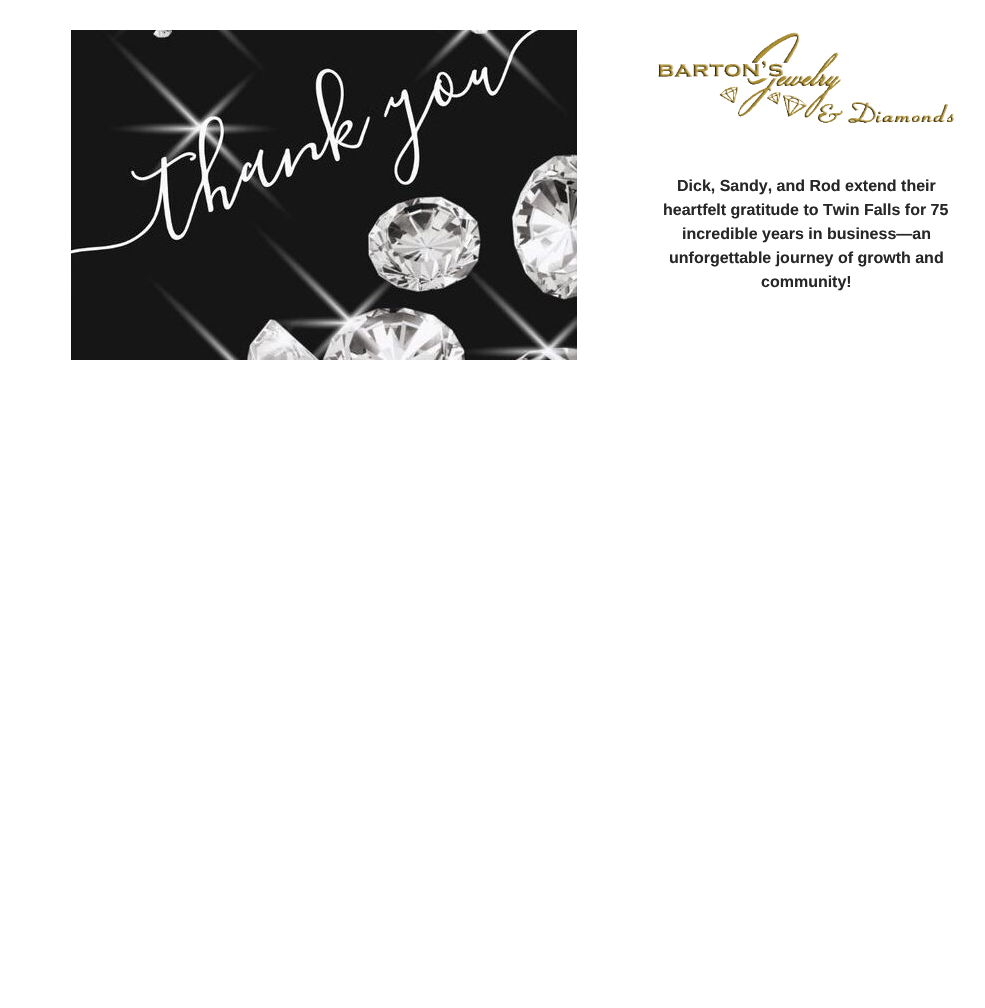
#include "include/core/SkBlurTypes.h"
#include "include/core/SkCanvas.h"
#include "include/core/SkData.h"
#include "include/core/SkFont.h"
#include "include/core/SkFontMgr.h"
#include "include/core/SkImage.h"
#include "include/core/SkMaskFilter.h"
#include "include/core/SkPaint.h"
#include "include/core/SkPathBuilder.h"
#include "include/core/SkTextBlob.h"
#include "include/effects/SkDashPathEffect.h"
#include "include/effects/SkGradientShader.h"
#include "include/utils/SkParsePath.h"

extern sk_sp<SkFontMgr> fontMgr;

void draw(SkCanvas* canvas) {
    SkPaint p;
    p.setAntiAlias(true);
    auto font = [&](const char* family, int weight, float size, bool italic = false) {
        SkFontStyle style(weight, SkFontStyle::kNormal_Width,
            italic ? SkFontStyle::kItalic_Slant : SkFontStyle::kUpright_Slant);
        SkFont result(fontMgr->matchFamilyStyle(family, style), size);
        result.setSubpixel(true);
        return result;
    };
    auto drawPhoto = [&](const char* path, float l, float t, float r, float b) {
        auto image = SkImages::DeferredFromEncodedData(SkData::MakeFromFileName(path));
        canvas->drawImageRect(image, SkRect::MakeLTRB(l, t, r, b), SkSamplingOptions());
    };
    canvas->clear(0xFFFFFFFF);
    drawPhoto("media/1.png", 71, 30, 577, 360);
    drawPhoto("media/2.png", 658, 32, 954, 123);
    auto font1 = font("Liberation Sans", 700, 16);
    p.setColor(0xFF272727);
    {
        const struct { const char* s; float x, y; } items[] = {
            {"Dick, Sandy, and Rod extend their", 677, 191},
            {"heartfelt gratitude to Twin Falls for 75", 663, 215},
            {"incredible years in business—an", 682, 239},
            {"unforgettable journey of growth and", 669, 263},
            {"community!", 761, 287},
        };
        for (auto [s, x, y] : items) {
            canvas->drawString(s, x, y, font1, p);
        }
    }
}
